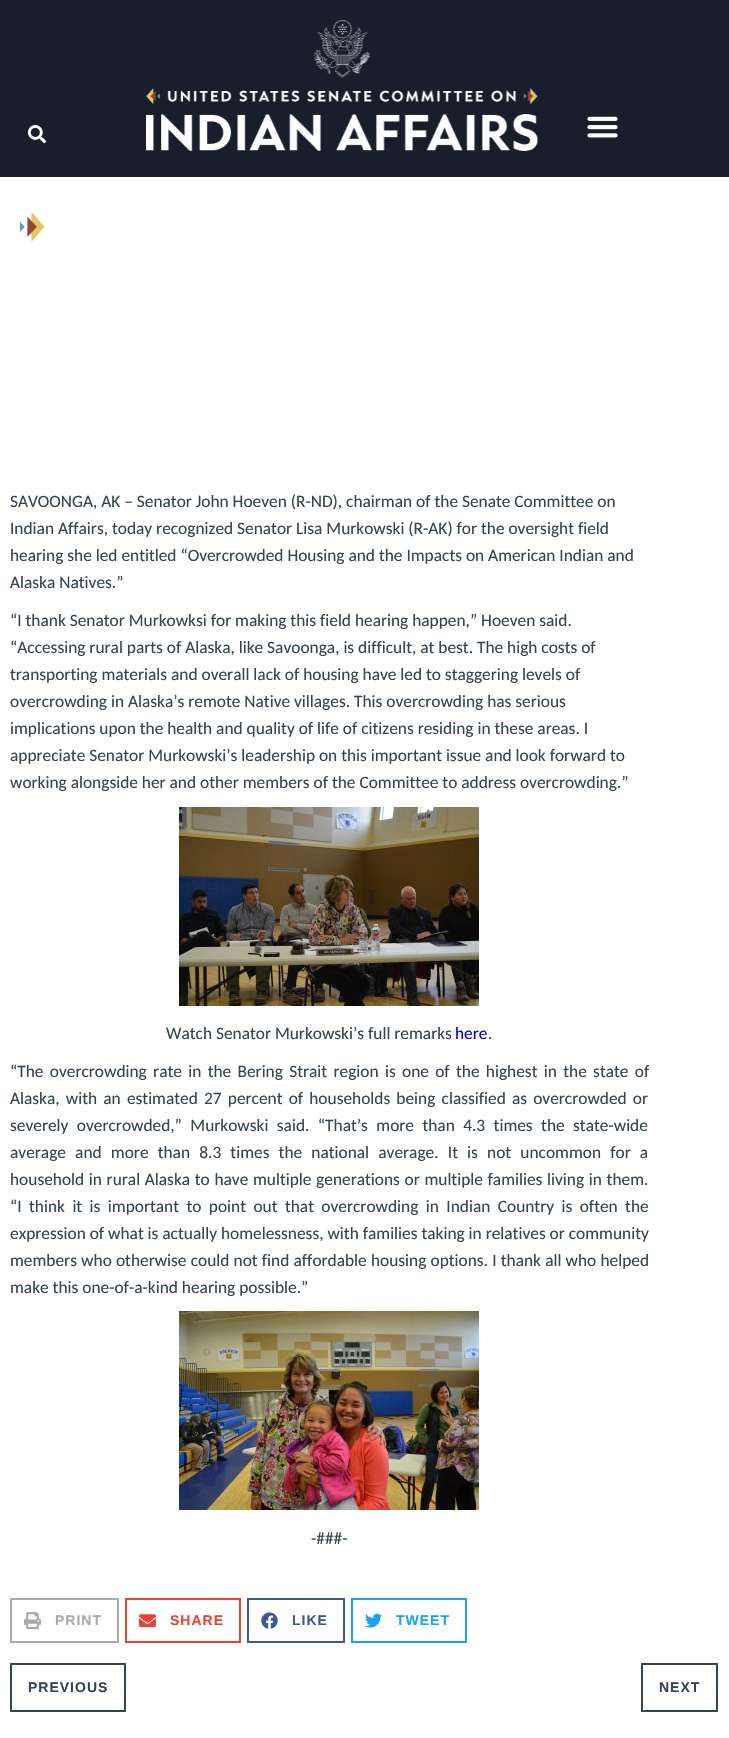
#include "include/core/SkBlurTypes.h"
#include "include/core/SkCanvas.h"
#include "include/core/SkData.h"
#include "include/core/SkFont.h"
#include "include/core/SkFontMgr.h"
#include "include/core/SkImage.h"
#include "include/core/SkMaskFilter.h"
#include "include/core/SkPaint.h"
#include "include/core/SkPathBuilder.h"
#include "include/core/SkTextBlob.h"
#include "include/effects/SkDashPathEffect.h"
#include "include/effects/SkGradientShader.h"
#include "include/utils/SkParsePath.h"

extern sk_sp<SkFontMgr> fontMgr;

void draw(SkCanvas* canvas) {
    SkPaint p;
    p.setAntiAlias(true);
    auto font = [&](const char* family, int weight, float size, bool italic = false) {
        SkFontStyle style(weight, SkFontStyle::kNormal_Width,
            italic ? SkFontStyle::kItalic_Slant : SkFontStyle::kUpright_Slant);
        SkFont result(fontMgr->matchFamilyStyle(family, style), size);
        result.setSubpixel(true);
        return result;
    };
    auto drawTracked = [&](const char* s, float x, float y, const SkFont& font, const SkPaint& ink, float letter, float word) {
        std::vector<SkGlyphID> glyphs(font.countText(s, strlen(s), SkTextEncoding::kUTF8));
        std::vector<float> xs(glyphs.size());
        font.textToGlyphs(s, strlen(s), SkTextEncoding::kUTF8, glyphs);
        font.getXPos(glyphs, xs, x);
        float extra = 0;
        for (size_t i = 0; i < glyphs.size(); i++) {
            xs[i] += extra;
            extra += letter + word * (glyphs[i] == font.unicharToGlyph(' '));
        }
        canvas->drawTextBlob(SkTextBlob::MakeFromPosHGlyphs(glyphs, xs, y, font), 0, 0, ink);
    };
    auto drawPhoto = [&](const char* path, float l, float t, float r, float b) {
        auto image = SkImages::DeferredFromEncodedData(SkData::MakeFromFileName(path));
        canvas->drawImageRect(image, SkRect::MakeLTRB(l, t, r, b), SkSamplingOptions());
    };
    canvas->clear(0xFFFFFFFF);
    p.setColor(0xFF191E2D);
    canvas->drawRect(SkRect::MakeLTRB(0, 0, 729, 177), p);
    drawPhoto("media/1.png", 27, 125, 46, 144);
    drawPhoto("media/2.png", 146, 20, 538, 151);
    drawPhoto("media/3.png", 587, 116, 618, 138);
    drawPhoto("media/4.png", 20, 212, 45, 242);
    auto font1 = font("Carlito", 400, 17.35f);
    p.setColor(0xFF35444F);
    {
        const struct { const char* s; float x, y; } items[] = {
            {"SAVOONGA, AK – Senator John Hoeven (R-ND), chairman of the Senate Committee on", 10, 507},
            {"Indian Affairs, today recognized Senator Lisa Murkowski (R-AK) for the oversight field", 10, 534},
            {"hearing she led entitled “Overcrowded Housing and the Impacts on American Indian and", 10, 561},
            {"Alaska Natives.”", 10, 588},
            {"“I thank Senator Murkowksi for making this field hearing happen,” Hoeven said.", 10, 626},
            {"“Accessing rural parts of Alaska, like Savoonga, is difficult, at best. The high costs of", 10, 653},
            {"transporting materials and overall lack of housing have led to staggering levels of", 10, 680},
            {"overcrowding in Alaska’s remote Native villages. This overcrowding has serious", 10, 707},
            {"implications upon the health and quality of life of citizens residing in these areas. I", 10, 734},
            {"appreciate Senator Murkowski’s leadership on this important issue and look forward to", 10, 761},
            {"working alongside her and other members of the Committee to address overcrowding.”", 10, 788},
        };
        for (auto [s, x, y] : items) {
            canvas->drawString(s, x, y, font1, p);
        }
    }
    drawPhoto("media/5.png", 179, 807, 479, 1006);
    canvas->drawString("Watch Senator Murkowski’s full remarks", 166, 1039, font1, p);
    p.setColor(0xFF0000FF);
    canvas->drawString("here", 455, 1039, font1, p);
    p.setColor(0xFF35444F);
    canvas->drawString(".", 488, 1039, font1, p);
    drawTracked("“The overcrowding rate in the Bering Strait region is one of the highest in the state of", 10, 1077, font1, p, 0, 2.4f);
    drawTracked("Alaska, with an estimated 27 percent of households being classified as overcrowded or", 10, 1104, font1, p, 0, 2.25f);
    drawTracked("severely overcrowded,” Murkowski said. “That’s more than 4.3 times the state-wide", 10, 1131, font1, p, 0, 4.5f);
    drawTracked("average and more than 8.3 times the national average. It is not uncommon for a", 10, 1158, font1, p, 0, 5.25f);
    drawTracked("household in rural Alaska to have multiple generations or multiple families living in them", 10, 1185, font1, p, 0, 0.75f);
    canvas->drawString(".", 644, 1185, font1, p);
    drawTracked("“I think it is important to point out that overcrowding in Indian Country is often the", 10, 1212, font1, p, 0, 3.5f);
    canvas->drawString("expression of what is actually homelessness, with families taking in relatives or community", 10, 1239, font1, p);
    drawTracked("members who otherwise could not find affordable housing options. I thank all who helped", 10, 1266, font1, p, 0, 0.25f);
    canvas->drawString("make this one-of-a-kind hearing possible.”", 10, 1293, font1, p);
    drawPhoto("media/6.png", 179, 1311, 479, 1510);
    canvas->drawString("-###-", 311, 1544, font1, p);
    p.setStyle(SkPaint::kStroke_Style);
    p.setStrokeWidth(2);
    p.setColor(0xFFAAAAAA);
    canvas->drawRect(SkRect::MakeLTRB(11, 1599, 118, 1642), p);
    drawPhoto("media/7.png", 24, 1612, 41, 1630);
    auto font2 = font("Liberation Sans", 700, 14);
    p.setStyle(SkPaint::kFill_Style);
    drawTracked("PRINT", 55, 1625, font2, p, 1, 0);
    p.setStyle(SkPaint::kStroke_Style);
    p.setColor(0xFFEA4335);
    canvas->drawRect(SkRect::MakeLTRB(126, 1599, 240, 1642), p);
    drawPhoto("media/8.png", 139, 1614, 156, 1627);
    p.setStyle(SkPaint::kFill_Style);
    drawTracked("SHARE", 170, 1625, font2, p, 1, 0);
    p.setStyle(SkPaint::kStroke_Style);
    p.setColor(0xFF3B5998);
    canvas->drawRect(SkRect::MakeLTRB(248, 1599, 344, 1642), p);
    drawPhoto("media/9.png", 261, 1612, 278, 1629);
    p.setStyle(SkPaint::kFill_Style);
    drawTracked("LIKE", 292, 1625, font2, p, 1, 0);
    p.setStyle(SkPaint::kStroke_Style);
    p.setColor(0xFF1DA1F2);
    canvas->drawRect(SkRect::MakeLTRB(352, 1599, 466, 1642), p);
    drawPhoto("media/10.png", 365, 1613, 382, 1628);
    p.setStyle(SkPaint::kFill_Style);
    drawTracked("TWEET", 396, 1625, font2, p, 1, 0);
    p.setStyle(SkPaint::kStroke_Style);
    p.setColor(0xFF35444F);
    canvas->drawRect(SkRect::MakeLTRB(11, 1664, 125, 1711), p);
    p.setStyle(SkPaint::kFill_Style);
    drawTracked("PREVIOUS", 28, 1692, font2, p, 1, 0);
    p.setStyle(SkPaint::kStroke_Style);
    canvas->drawRect(SkRect::MakeLTRB(642, 1664, 717, 1711), p);
    p.setStyle(SkPaint::kFill_Style);
    drawTracked("NEXT", 659, 1692, font2, p, 1, 0);
}
